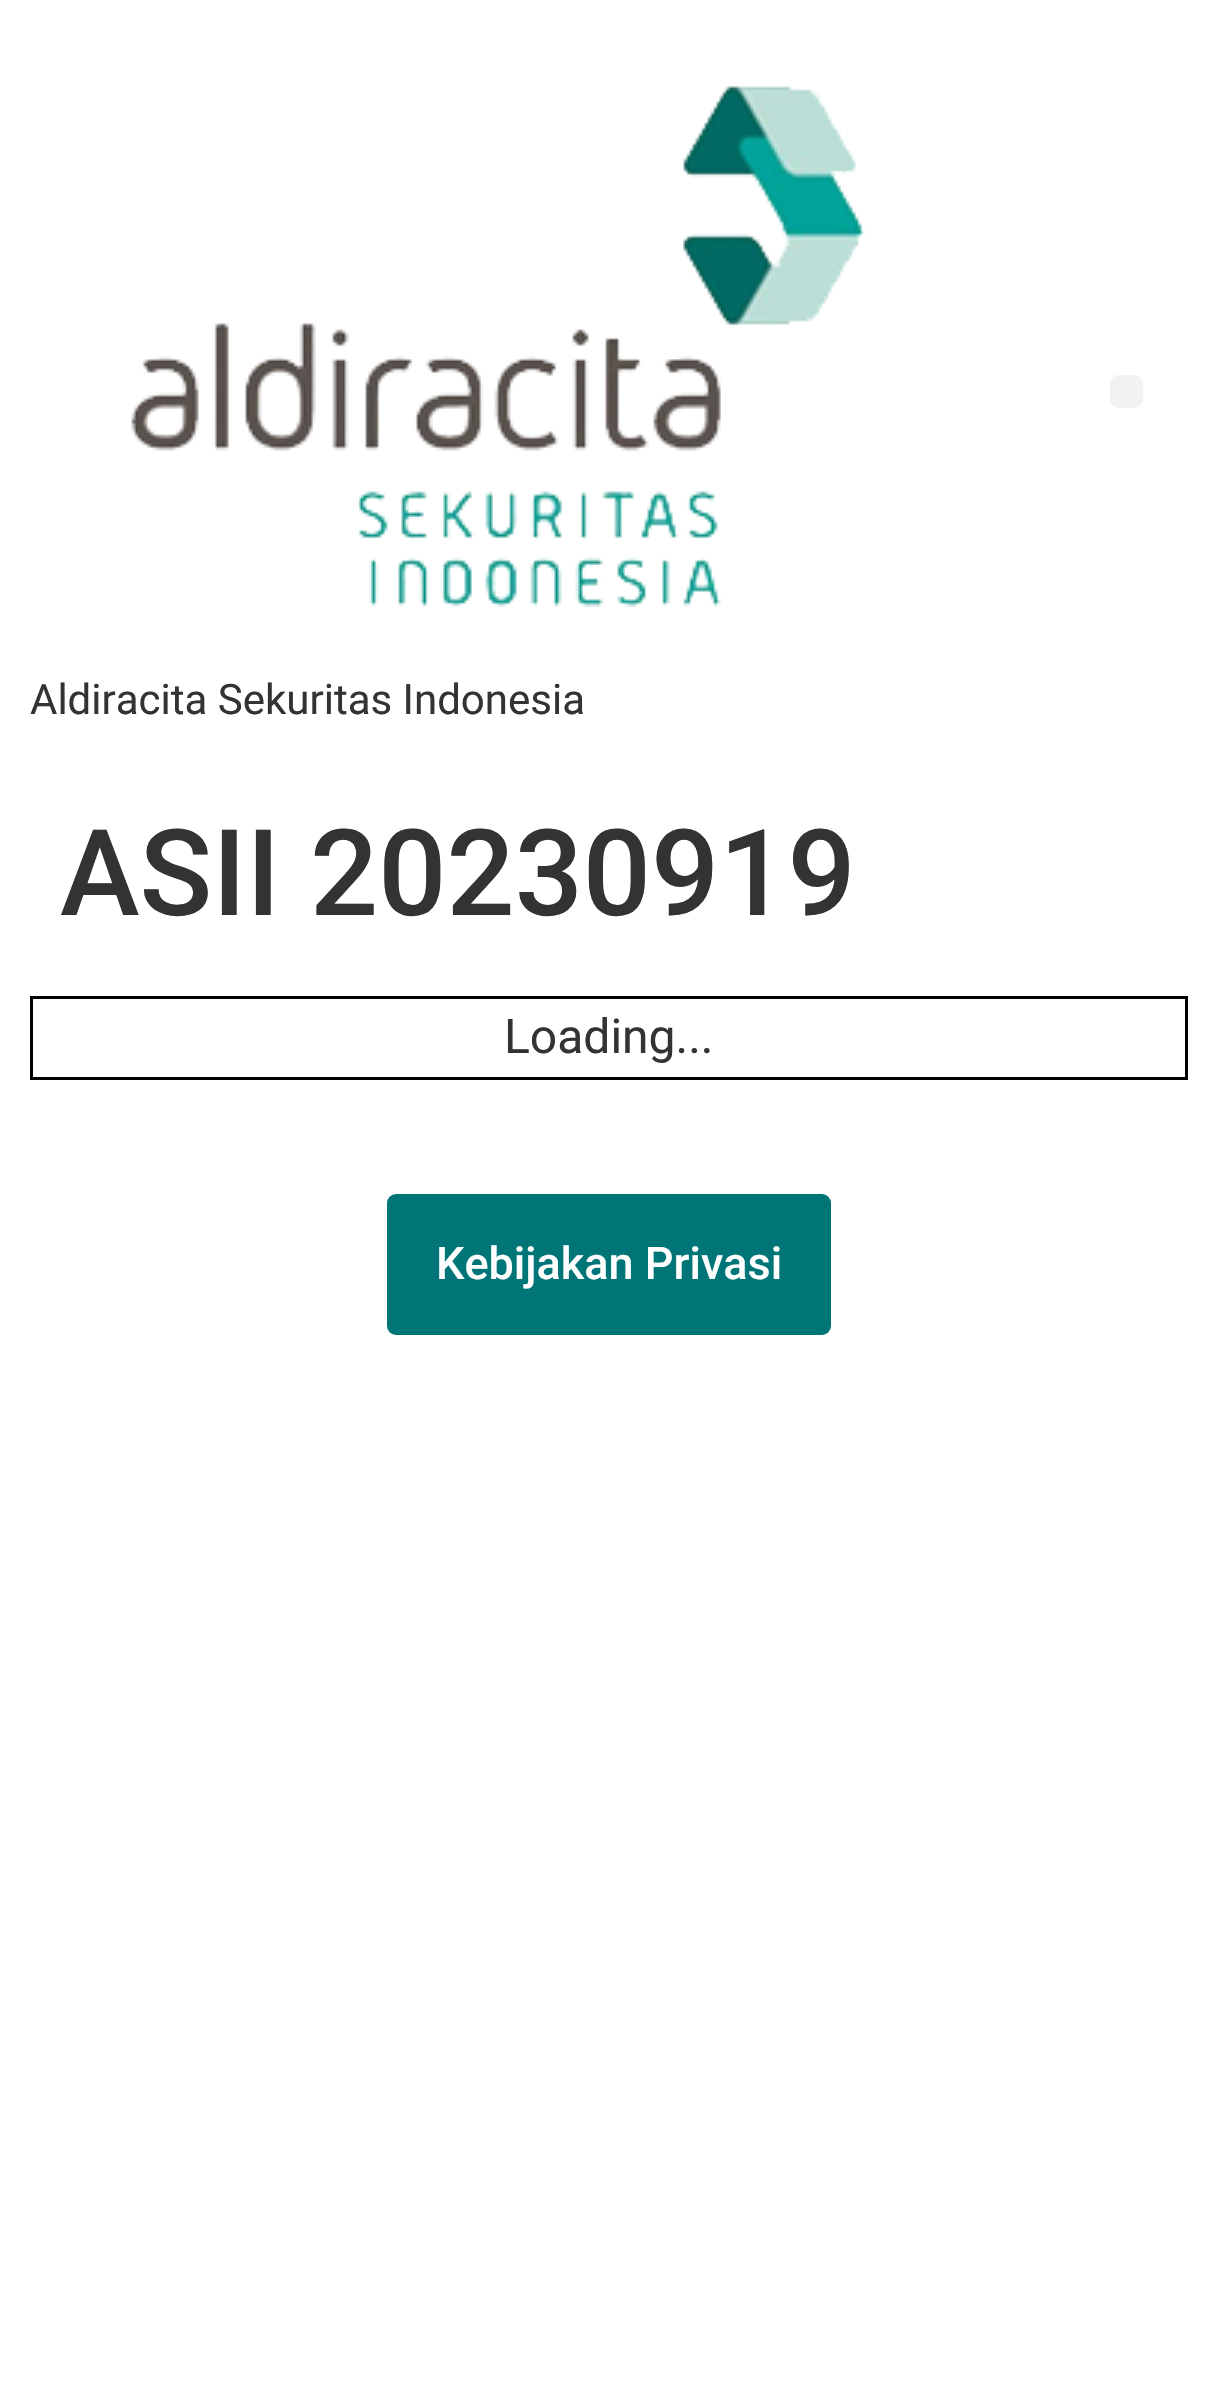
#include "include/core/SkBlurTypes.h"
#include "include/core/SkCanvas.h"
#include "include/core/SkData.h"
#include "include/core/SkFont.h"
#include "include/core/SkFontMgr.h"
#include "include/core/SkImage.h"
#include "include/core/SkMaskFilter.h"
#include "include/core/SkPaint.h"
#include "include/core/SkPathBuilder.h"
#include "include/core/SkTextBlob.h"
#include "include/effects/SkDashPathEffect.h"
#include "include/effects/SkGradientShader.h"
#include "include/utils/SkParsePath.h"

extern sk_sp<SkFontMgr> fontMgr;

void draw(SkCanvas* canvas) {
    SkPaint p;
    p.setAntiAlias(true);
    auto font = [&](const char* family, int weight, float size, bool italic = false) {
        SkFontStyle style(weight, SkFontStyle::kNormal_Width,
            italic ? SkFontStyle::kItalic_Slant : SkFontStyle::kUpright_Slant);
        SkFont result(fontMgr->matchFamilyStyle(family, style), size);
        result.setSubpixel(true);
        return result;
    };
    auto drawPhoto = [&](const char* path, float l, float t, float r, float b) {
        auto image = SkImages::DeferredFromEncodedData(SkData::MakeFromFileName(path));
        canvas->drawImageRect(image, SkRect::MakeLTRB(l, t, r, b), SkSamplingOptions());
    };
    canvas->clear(0xFFFFFFFF);
    p.setColor(0xFFF2F2F2);
    canvas->drawRoundRect(SkRect::MakeLTRB(1110, 375, 1143, 408), 9, 9, p);
    drawPhoto("media/1.png", 131, 86, 865, 607);
    auto font1 = font("Roboto", 400, 42);
    p.setColor(0xFF333333);
    canvas->drawString("Aldiracita Sekuritas Indonesia", 30, 714, font1, p);
    auto font2 = font("Roboto", 500, 120);
    canvas->drawString("ASII 20230919", 60, 915, font2, p);
    p.setStyle(SkPaint::kStroke_Style);
    p.setStrokeWidth(3);
    p.setColor(0xFF000000);
    canvas->drawRect(SkRect::MakeLTRB(31.5f, 997.5f, 1186.5f, 1078.5f), p);
    auto font3 = font("Roboto", 400, 48);
    p.setStyle(SkPaint::kFill_Style);
    p.setColor(0xFF333333);
    canvas->drawString("Loading...", 504, 1053, font3, p);
    p.setColor(0xFF007577);
    canvas->drawRoundRect(SkRect::MakeLTRB(387, 1194, 831, 1335), 9, 9, p);
    auto font4 = font("Roboto", 500, 45);
    p.setColor(0xFFFFFFFF);
    canvas->drawString("Kebijakan Privasi", 436, 1279, font4, p);
}
